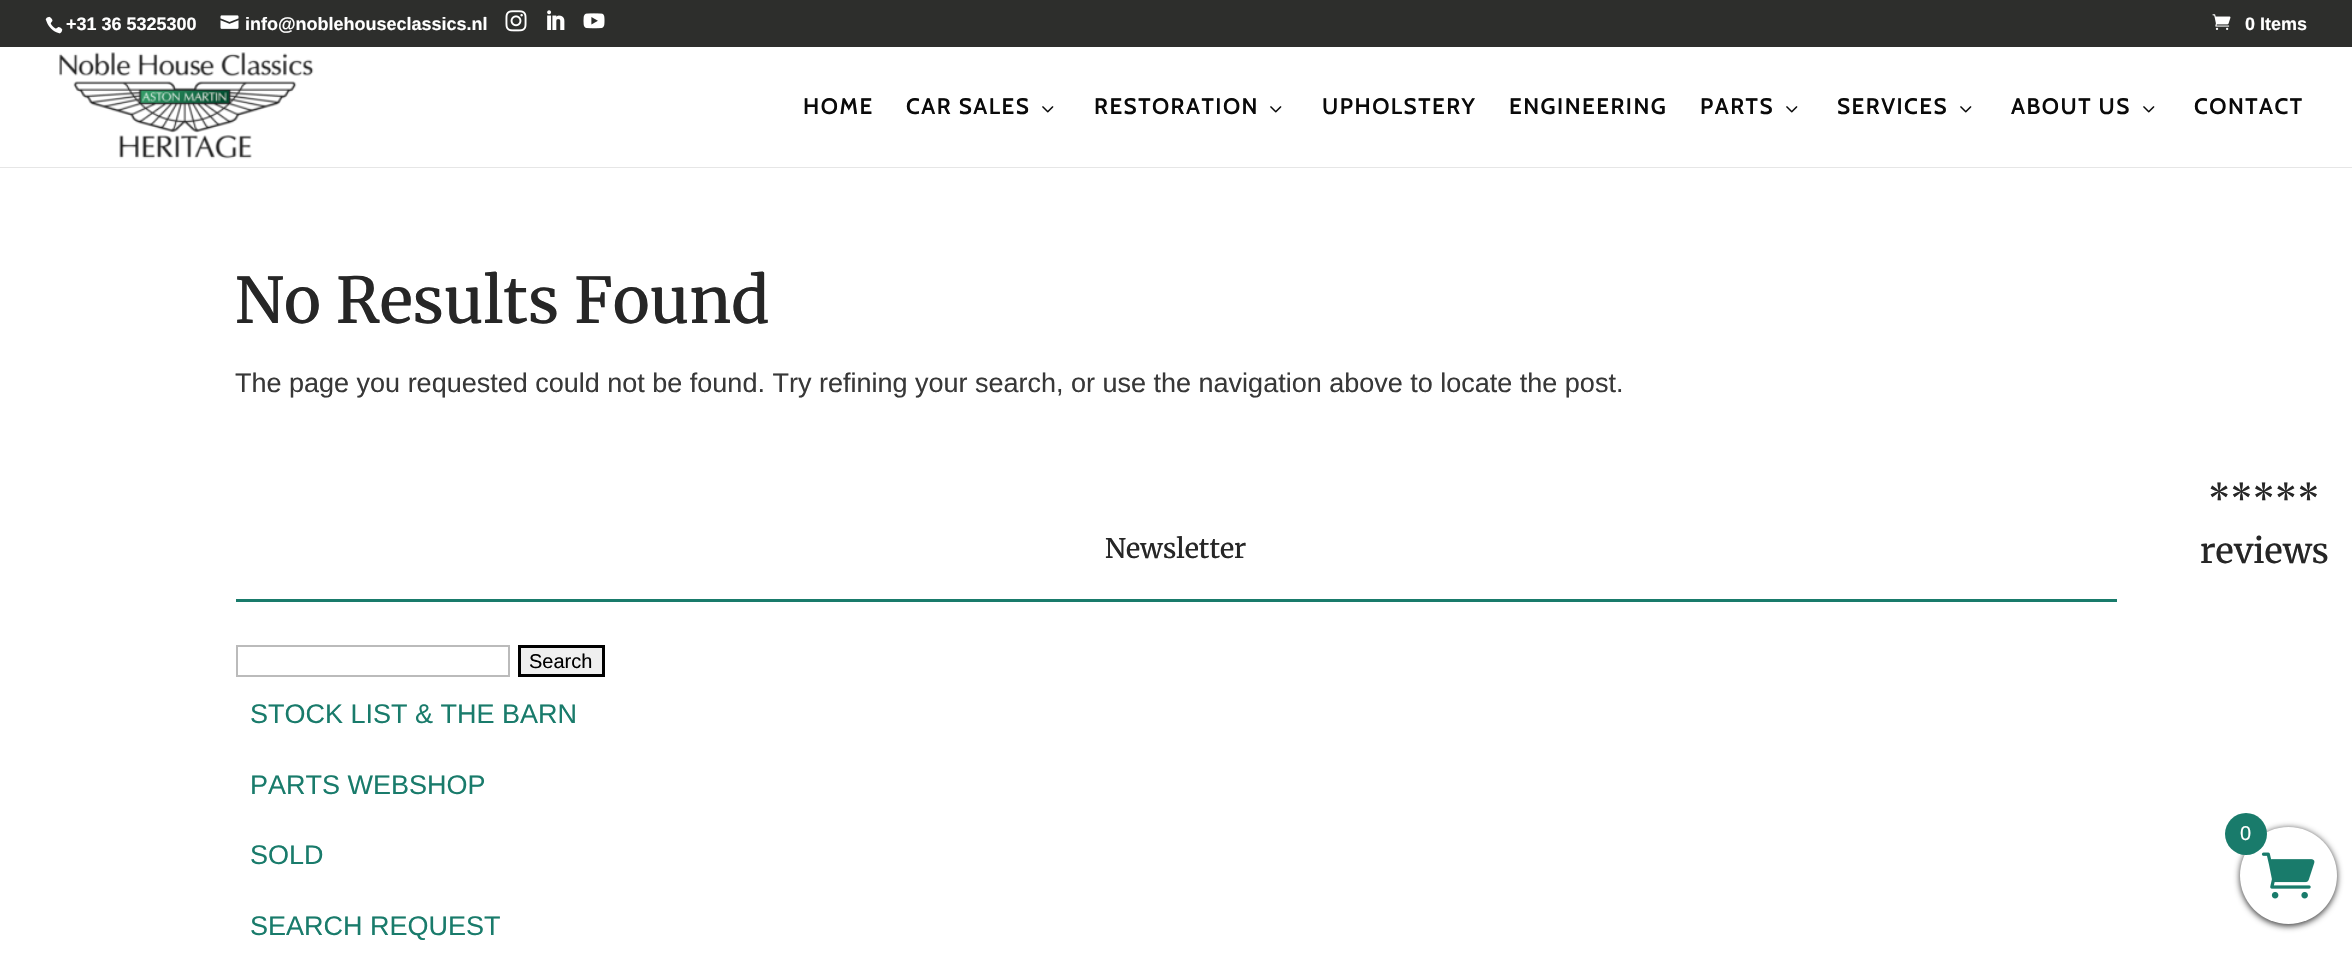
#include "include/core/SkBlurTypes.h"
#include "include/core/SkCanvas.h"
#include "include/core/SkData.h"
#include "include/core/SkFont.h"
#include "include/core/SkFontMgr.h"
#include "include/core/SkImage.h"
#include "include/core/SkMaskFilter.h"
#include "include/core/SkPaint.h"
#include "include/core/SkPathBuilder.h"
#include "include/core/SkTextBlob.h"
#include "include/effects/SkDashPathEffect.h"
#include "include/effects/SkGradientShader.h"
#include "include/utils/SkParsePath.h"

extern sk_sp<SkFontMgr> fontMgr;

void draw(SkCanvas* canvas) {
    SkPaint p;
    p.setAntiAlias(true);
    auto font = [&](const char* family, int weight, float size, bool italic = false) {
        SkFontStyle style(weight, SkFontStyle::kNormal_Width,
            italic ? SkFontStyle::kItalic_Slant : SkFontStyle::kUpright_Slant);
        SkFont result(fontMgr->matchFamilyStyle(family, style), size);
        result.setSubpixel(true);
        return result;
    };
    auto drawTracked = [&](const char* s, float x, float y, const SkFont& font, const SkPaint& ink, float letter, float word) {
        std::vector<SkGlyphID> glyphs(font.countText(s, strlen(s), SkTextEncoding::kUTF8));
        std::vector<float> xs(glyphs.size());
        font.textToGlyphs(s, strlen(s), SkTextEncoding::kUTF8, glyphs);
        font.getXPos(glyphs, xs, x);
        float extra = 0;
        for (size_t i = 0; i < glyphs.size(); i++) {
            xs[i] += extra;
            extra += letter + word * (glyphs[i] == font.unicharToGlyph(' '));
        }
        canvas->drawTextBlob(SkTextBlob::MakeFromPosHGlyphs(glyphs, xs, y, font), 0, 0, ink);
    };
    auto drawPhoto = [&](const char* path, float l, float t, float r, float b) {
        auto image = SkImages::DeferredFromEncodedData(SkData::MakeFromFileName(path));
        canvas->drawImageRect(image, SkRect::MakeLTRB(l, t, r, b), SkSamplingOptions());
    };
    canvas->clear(0xFFFFFFFF);
    p.setColor(0xFF2D2E2C);
    canvas->drawRect(SkRect::MakeLTRB(0, 0, 2352, 47), p);
    drawPhoto("media/1.png", 45, 16, 63, 34);
    auto font1 = font("Liberation Sans", 700, 18);
    p.setColor(0xFFFFFFFF);
    canvas->drawString("+31 36 5325300", 66, 30, font1, p);
    drawPhoto("media/2.png", 220, 15, 239, 29);
    canvas->drawString("info@noblehouseclassics.nl", 245, 30, font1, p);
    drawPhoto("media/3.png", 505, 10, 527, 32);
    drawPhoto("media/4.png", 547, 10, 565, 30);
    drawPhoto("media/5.png", 583, 13, 605, 29);
    drawPhoto("media/6.png", 2212, 14, 2231, 30);
    canvas->drawString("0 Items", 2245, 30, font1, p);
    p.setColor(0xFFE6E6E6);
    canvas->drawRect(SkRect::MakeLTRB(0, 167, 2352, 168), p);
    drawPhoto("media/7.png", 59, 52, 314, 159);
    auto font2 = font("Cabin", 600, 22.5f);
    p.setColor(0xFF0A0A0A);
    drawTracked("HOME", 803, 114, font2, p, 1.5f, 0);
    drawTracked("CAR SALES", 906, 114, font2, p, 1.5f, 0);
    drawPhoto("media/8.png", 1042, 106, 1054, 113);
    drawTracked("RESTORATION", 1094, 114, font2, p, 1.5f, 0);
    drawPhoto("media/8.png", 1270, 106, 1282, 113);
    {
        const struct { const char* s; float x, y; } items[] = {
            {"UPHOLSTERY", 1322, 114},
            {"ENGINEERING", 1509, 114},
            {"PARTS", 1700, 114},
        };
        for (auto [s, x, y] : items) {
            drawTracked(s, x, y, font2, p, 1.5f, 0);
        }
    }
    drawPhoto("media/8.png", 1786, 106, 1798, 113);
    drawTracked("SERVICES", 1837, 114, font2, p, 1.5f, 0);
    drawPhoto("media/8.png", 1960, 106, 1972, 113);
    drawTracked("ABOUT US", 2011, 114, font2, p, 1.5f, 0);
    drawPhoto("media/8.png", 2143, 106, 2155, 113);
    drawTracked("CONTACT", 2194, 114, font2, p, 1.5f, 0);
    auto font3 = font("Merriweather", 500, 63);
    p.setColor(0xFF262626);
    canvas->drawString("No Results Found", 235, 323, font3, p);
    auto font4 = font("Liberation Sans", 400, 27);
    p.setColor(0xFF383838);
    canvas->drawString("The page you requested could not be found. Try refining your search, or use the navigation above to locate the post.", 235, 392, font4, p);
    p.setColor(0xFF197B6B);
    canvas->drawRect(SkRect::MakeLTRB(236, 599, 2117, 602), p);
    auto font5 = font("Merriweather", 500, 27);
    p.setColor(0xFF262626);
    canvas->drawString("Newsletter", 1105, 558, font5, p);
    p.setStyle(SkPaint::kStroke_Style);
    p.setStrokeWidth(2);
    p.setColor(0xFFBBBBBB);
    canvas->drawRect(SkRect::MakeLTRB(237, 646, 509, 676), p);
    p.setStyle(SkPaint::kFill_Style);
    p.setColor(0xFFEFEFEF);
    canvas->drawRect(SkRect::MakeLTRB(519.5f, 646.5f, 603.5f, 675.5f), p);
    p.setStyle(SkPaint::kStroke_Style);
    p.setStrokeWidth(3);
    p.setColor(0xFF000000);
    canvas->drawRect(SkRect::MakeLTRB(519.5f, 646.5f, 603.5f, 675.5f), p);
    auto font6 = font("Liberation Sans", 400, 20);
    p.setStyle(SkPaint::kFill_Style);
    canvas->drawString("Search", 529, 668, font6, p);
    p.setColor(0xFF197B6B);
    {
        const struct { const char* s; float x, y; } items[] = {
            {"STOCK LIST & THE BARN", 250, 723},
            {"PARTS WEBSHOP", 250, 794},
            {"SOLD", 250, 864},
            {"SEARCH REQUEST", 250, 935},
        };
        for (auto [s, x, y] : items) {
            canvas->drawString(s, x, y, font4, p);
        }
    }
    auto font7 = font("Merriweather", 500, 34.5f);
    p.setColor(0xFF262626);
    canvas->drawString("*****", 2208, 511, font7, p);
    canvas->drawString("reviews", 2200, 563, font7, p);
    p.setColor(0xFF383838);
    p.setMaskFilter(SkMaskFilter::MakeBlur(kNormal_SkBlurStyle, 3));
    canvas->drawRoundRect(SkRect::MakeLTRB(2240, 828, 2337, 926), 48.5f, 48.5f, p);
    p.setMaskFilter(nullptr);
    p.setColor(0xFFFFFFFF);
    canvas->drawCircle(2288.5f, 875.5f, 48.5f, p);
    drawPhoto("media/9.png", 2261, 852, 2315, 899);
    p.setColor(0xFF197B6B);
    canvas->drawCircle(2246, 834, 21, p);
    p.setColor(0xFFFFFFFF);
    canvas->drawString("0", 2240, 840, font6, p);
}
